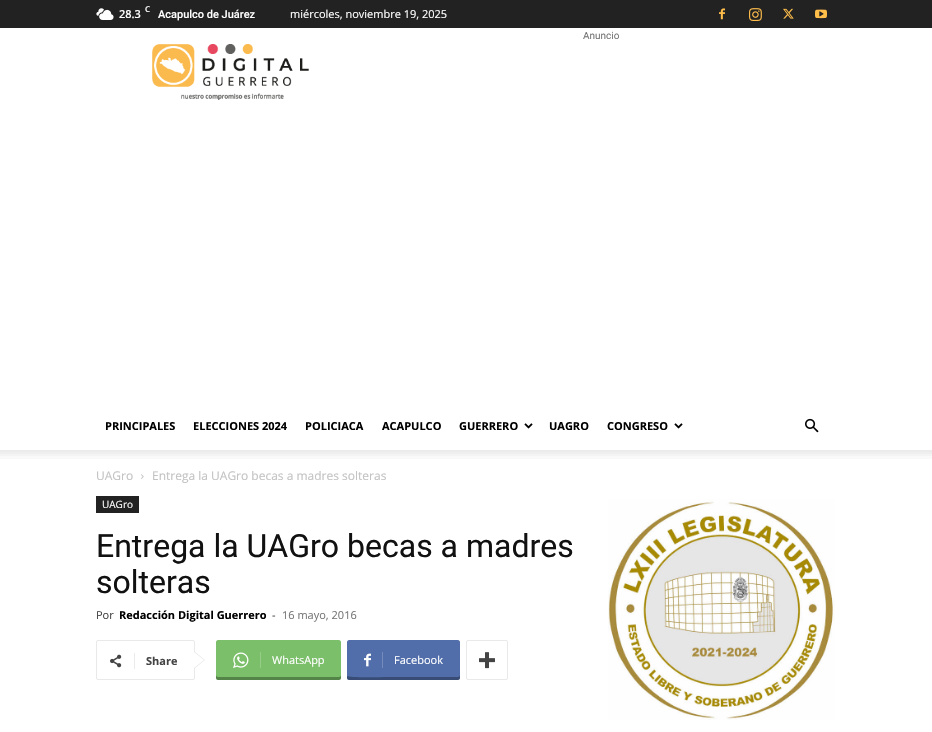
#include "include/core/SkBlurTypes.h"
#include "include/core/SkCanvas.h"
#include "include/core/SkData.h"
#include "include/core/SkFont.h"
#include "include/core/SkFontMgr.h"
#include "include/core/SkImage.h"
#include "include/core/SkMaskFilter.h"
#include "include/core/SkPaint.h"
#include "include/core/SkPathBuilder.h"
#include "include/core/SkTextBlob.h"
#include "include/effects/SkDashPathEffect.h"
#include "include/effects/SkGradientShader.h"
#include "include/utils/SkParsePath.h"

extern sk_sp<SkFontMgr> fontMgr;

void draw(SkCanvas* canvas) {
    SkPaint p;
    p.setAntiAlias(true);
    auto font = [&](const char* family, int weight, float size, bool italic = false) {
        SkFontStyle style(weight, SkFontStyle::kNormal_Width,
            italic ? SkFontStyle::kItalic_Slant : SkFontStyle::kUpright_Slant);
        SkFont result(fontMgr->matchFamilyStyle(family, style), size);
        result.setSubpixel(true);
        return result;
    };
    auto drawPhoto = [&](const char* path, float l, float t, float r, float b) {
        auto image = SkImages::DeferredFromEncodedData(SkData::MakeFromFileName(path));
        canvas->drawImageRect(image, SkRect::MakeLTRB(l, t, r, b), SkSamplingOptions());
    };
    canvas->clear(0xFFFFFFFF);
    p.setColor(0xFF222222);
    canvas->drawRect(SkRect::MakeLTRB(0, 0, 932, 28), p);
    drawPhoto("media/1.png", 96, 8, 114, 20);
    auto font1 = font("Open Sans", 600, 11);
    p.setColor(0xFFFFFFFF);
    canvas->drawString("28.3", 119, 18, font1, p);
    auto font2 = font("Open Sans", 600, 8);
    canvas->drawString("C", 145, 12, font2, p);
    auto font3 = font("Roboto", 500, 11);
    canvas->drawString("Acapulco de Juárez", 158, 18, font3, p);
    auto font4 = font("Open Sans", 400, 11);
    canvas->drawString("miércoles, noviembre 19, 2025", 290, 18, font4, p);
    drawPhoto("media/2.png", 719, 8, 725, 20);
    drawPhoto("media/3.png", 749, 8, 762, 21);
    drawPhoto("media/4.png", 783, 8, 794, 19);
    drawPhoto("media/5.png", 815, 9, 827, 19);
    auto font5 = font("Roboto", 400, 10);
    p.setColor(0xFF767676);
    canvas->drawString("Anuncio", 583, 39, font5, p);
    drawPhoto("media/6.png", 152, 44, 309, 100);
    auto font6 = font("Open Sans", 700, 11);
    p.setColor(0xFF000000);
    {
        const struct { const char* s; float x, y; } items[] = {
            {"PRINCIPALES", 105, 430},
            {"ELECCIONES 2024", 193, 430},
            {"POLICIACA", 305, 430},
            {"ACAPULCO", 382, 430},
            {"GUERRERO", 459, 430},
        };
        for (auto [s, x, y] : items) {
            canvas->drawString(s, x, y, font6, p);
        }
    }
    drawPhoto("media/7.png", 524, 423, 533, 429);
    canvas->drawString("UAGRO", 549, 430, font6, p);
    canvas->drawString("CONGRESO", 607, 430, font6, p);
    drawPhoto("media/7.png", 674, 423, 683, 429);
    drawPhoto("media/8.png", 805, 418, 819, 433);
    drawPhoto("media/9.png", 0, 450, 932, 459);
    auto font7 = font("Open Sans", 400, 12);
    p.setColor(0xFFC3C3C3);
    canvas->drawString("UAGro", 96, 480, font7, p);
    drawPhoto("media/10.png", 141, 474, 144, 479);
    canvas->drawString("Entrega la UAGro becas a madres solteras", 152, 480, font7, p);
    p.setColor(0xFF222222);
    canvas->drawRect(SkRect::MakeLTRB(96, 496, 139, 513), p);
    auto font8 = font("Open Sans", 400, 10);
    p.setColor(0xFFFFFFFF);
    canvas->drawString("UAGro", 102, 508, font8, p);
    auto font9 = font("Roboto", 400, 32);
    p.setColor(0xFF111111);
    canvas->drawString("Entrega la UAGro becas a madres", 96, 557, font9, p);
    canvas->drawString("solteras", 96, 593, font9, p);
    p.setColor(0xFF444444);
    canvas->drawString("Por", 96, 619, font4, p);
    p.setColor(0xFF000000);
    canvas->drawString("Redacción Digital Guerrero", 119, 619, font6, p);
    p.setColor(0xFF444444);
    canvas->drawString("-", 272, 619, font4, p);
    p.setColor(0xFF767676);
    canvas->drawString("16 mayo, 2016", 282, 619, font4, p);
    p.setStyle(SkPaint::kStroke_Style);
    p.setStrokeWidth(1);
    p.setColor(0xFFE9E9E9);
    canvas->drawRoundRect(SkRect::MakeLTRB(96.5f, 640.5f, 194.5f, 679.5f), 1.5f, 1.5f, p);
    p.setStyle(SkPaint::kFill_Style);
    canvas->drawPath(SkPathBuilder().moveTo(194, 669).lineTo(194, 651).lineTo(205, 660).close().detach(), p);
    drawPhoto("media/11.png", 110, 654, 122, 668);
    p.setColor(0xFFEBEBEB);
    canvas->drawRect(SkRect::MakeLTRB(134, 653, 135, 669), p);
    p.setColor(0xFF444444);
    canvas->drawString("Share", 146, 665, font6, p);
    p.setColor(0xFFFFFFFF);
    canvas->drawPath(SkPathBuilder().moveTo(194, 668).lineTo(194, 652).lineTo(204, 660).close().detach(), p);
    p.setColor(0xFF7BBF6A);
    canvas->drawPath(SkPathBuilder().moveTo(260, 640).lineTo(339, 640).cubicTo(340, 640, 341, 641, 341, 642).lineTo(341, 678).cubicTo(341, 679, 340, 680, 339, 680).lineTo(260, 680).close().detach(), p);
    p.setColor(0x4F000000);
    canvas->drawPath(SkPathBuilder().moveTo(260, 677).lineTo(260, 680).lineTo(339, 680).cubicTo(340, 680, 341, 679, 341, 678).lineTo(341, 675).cubicTo(341, 676, 340, 677, 339, 677).close().detach(), p);
    p.setColor(0xFF7BBF6A);
    canvas->drawPath(SkPathBuilder().moveTo(218, 640).lineTo(266, 640).lineTo(266, 680).lineTo(218, 680).cubicTo(217, 680, 216, 679, 216, 678).lineTo(216, 642).cubicTo(216, 641, 217, 640, 218, 640).close().detach(), p);
    p.setColor(0x4F000000);
    canvas->drawPath(SkPathBuilder().moveTo(216, 675).lineTo(216, 678).cubicTo(216, 679, 217, 680, 218, 680).lineTo(266, 680).lineTo(266, 677).lineTo(218, 677).cubicTo(217, 677, 216, 676, 216, 675).close().detach(), p);
    drawPhoto("media/12.png", 233, 652, 249, 668);
    p.setColor(0xFF95CC88);
    canvas->drawRect(SkRect::MakeLTRB(260, 652, 261, 668), p);
    p.setColor(0xFFFFFFFF);
    canvas->drawString("WhatsApp", 272, 664, font4, p);
    p.setColor(0xFF516EAB);
    canvas->drawPath(SkPathBuilder().moveTo(382, 640).lineTo(458, 640).cubicTo(459, 640, 460, 641, 460, 642).lineTo(460, 678).cubicTo(460, 679, 459, 680, 458, 680).lineTo(382, 680).close().detach(), p);
    p.setColor(0x4F000000);
    canvas->drawPath(SkPathBuilder().moveTo(382, 677).lineTo(382, 680).lineTo(458, 680).cubicTo(459, 680, 460, 679, 460, 678).lineTo(460, 675).cubicTo(460, 676, 459, 677, 458, 677).close().detach(), p);
    p.setColor(0xFF516EAB);
    canvas->drawPath(SkPathBuilder().moveTo(349, 640).lineTo(388, 640).lineTo(388, 680).lineTo(349, 680).cubicTo(348, 680, 347, 679, 347, 678).lineTo(347, 642).cubicTo(347, 641, 348, 640, 349, 640).close().detach(), p);
    p.setColor(0x4F000000);
    canvas->drawPath(SkPathBuilder().moveTo(347, 676).lineTo(347, 678).cubicTo(347, 679, 348, 680, 349, 680).lineTo(388, 680).lineTo(388, 677).cubicTo(383, 677, 349, 678, 347, 676).close().detach(), p);
    drawPhoto("media/13.png", 364, 653, 371, 667);
    p.setColor(0xFF748BBC);
    canvas->drawRect(SkRect::MakeLTRB(382, 652, 383, 668), p);
    p.setColor(0xFFFFFFFF);
    canvas->drawString("Facebook", 394, 664, font4, p);
    p.setStyle(SkPaint::kStroke_Style);
    p.setColor(0xFFE9E9E9);
    canvas->drawRoundRect(SkRect::MakeLTRB(466.5f, 640.5f, 507.5f, 679.5f), 1.5f, 1.5f, p);
    drawPhoto("media/14.png", 479, 652, 495, 669);
    drawPhoto("media/15.png", 608, 499, 835, 720);
}
